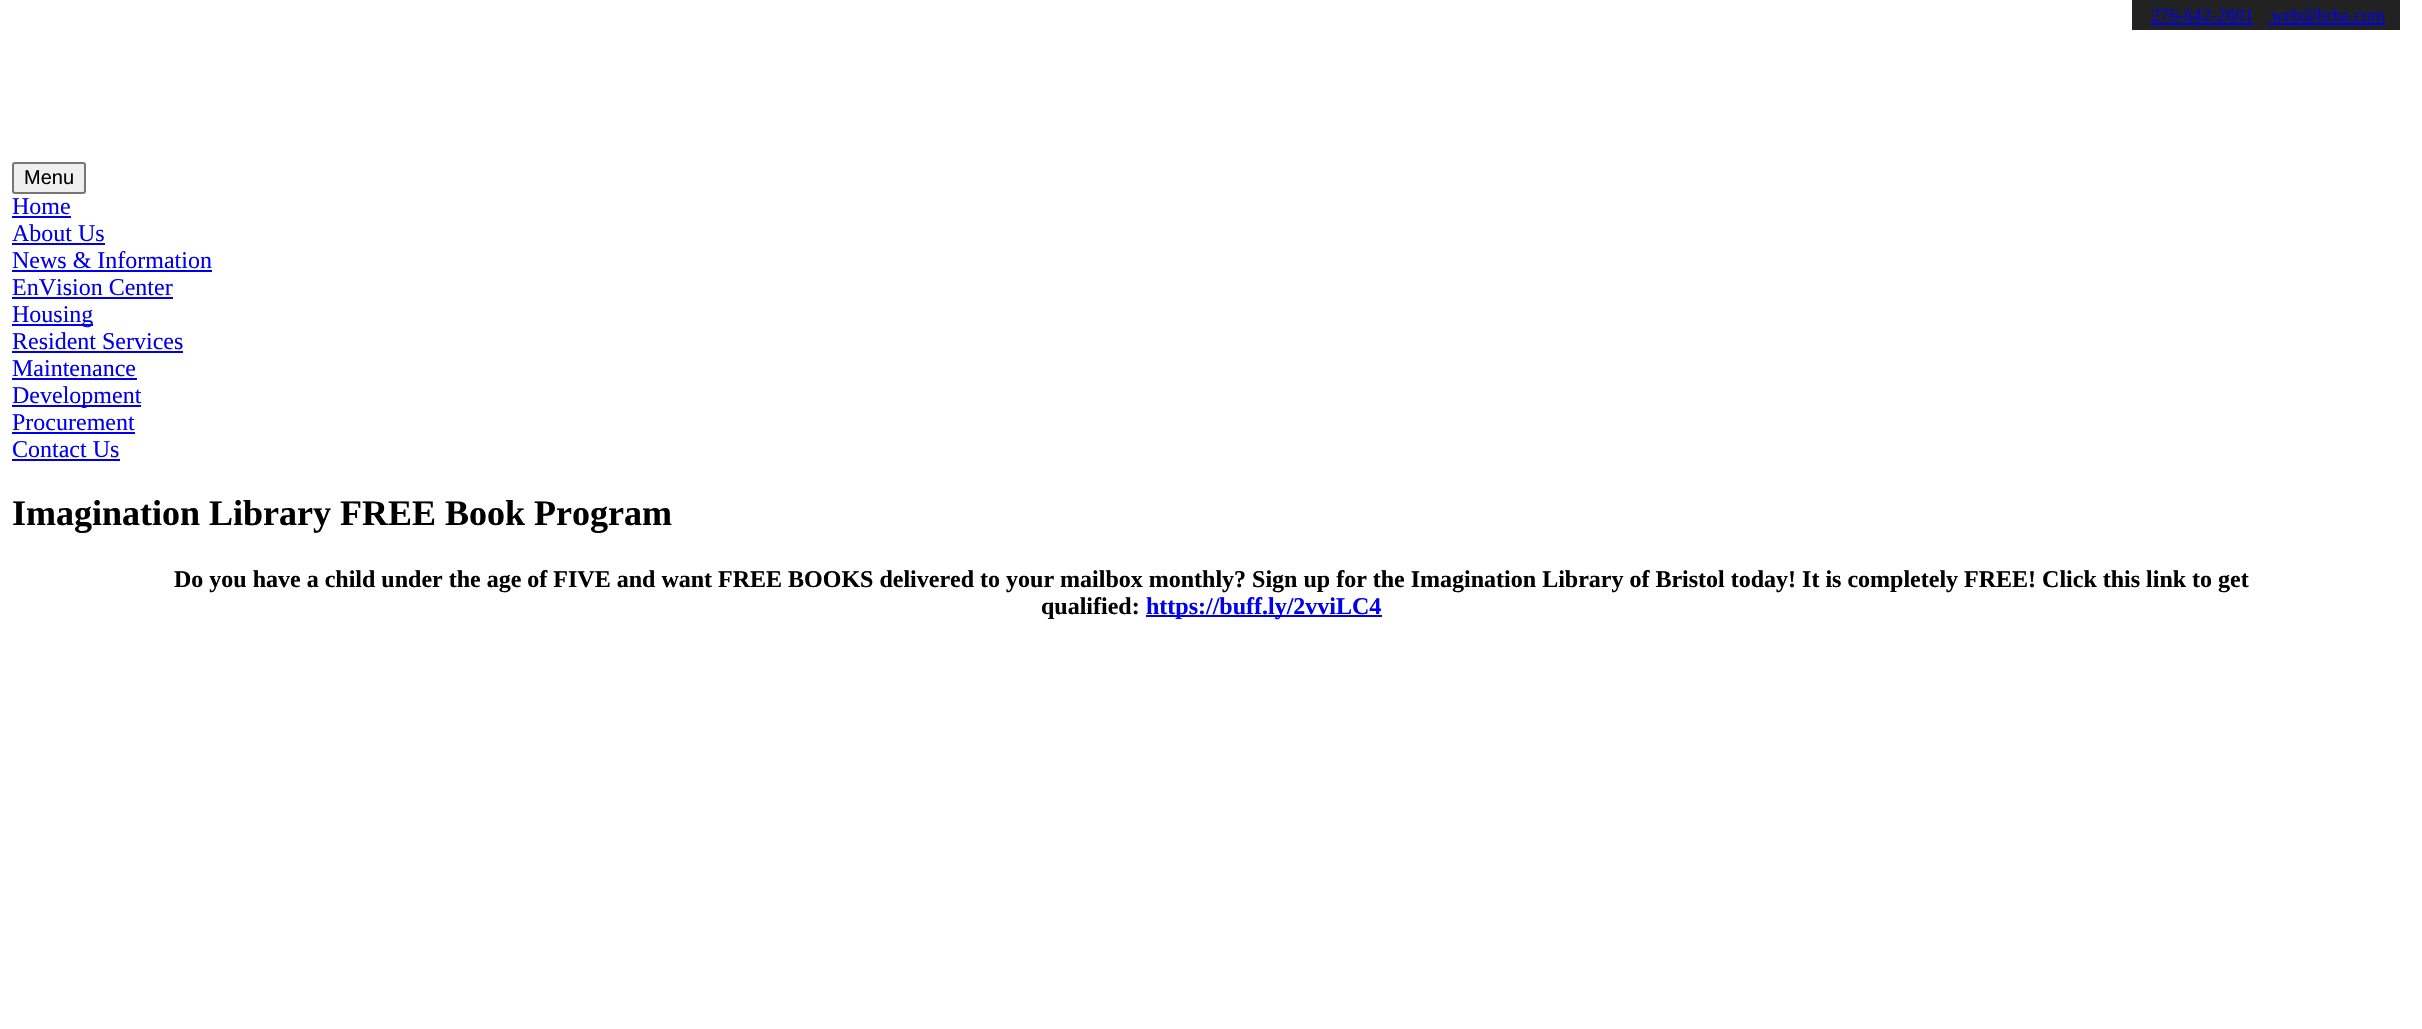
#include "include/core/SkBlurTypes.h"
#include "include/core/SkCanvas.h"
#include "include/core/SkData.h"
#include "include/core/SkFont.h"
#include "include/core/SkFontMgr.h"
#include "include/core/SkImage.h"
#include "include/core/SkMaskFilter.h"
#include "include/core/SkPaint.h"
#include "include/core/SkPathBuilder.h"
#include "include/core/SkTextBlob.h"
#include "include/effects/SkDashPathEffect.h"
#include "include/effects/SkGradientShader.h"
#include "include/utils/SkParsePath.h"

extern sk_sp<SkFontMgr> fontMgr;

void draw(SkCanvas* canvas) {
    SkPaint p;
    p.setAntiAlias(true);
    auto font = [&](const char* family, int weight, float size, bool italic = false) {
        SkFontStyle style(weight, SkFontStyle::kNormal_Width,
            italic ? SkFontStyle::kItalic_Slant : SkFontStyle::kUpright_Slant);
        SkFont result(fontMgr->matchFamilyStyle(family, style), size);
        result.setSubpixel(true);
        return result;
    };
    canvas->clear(0xFFFFFFFF);
    p.setColor(0xFF222222);
    canvas->drawRect(SkRect::MakeLTRB(2132, 0, 2400, 30), p);
    auto font1 = font("Liberation Serif", 400, 18);
    p.setColor(0xFF0000EE);
    canvas->drawString("276-642-2001", 2151, 21, font1, p);
    canvas->drawRect(SkRect::MakeLTRB(2151, 23, 2253, 25), p);
    canvas->drawRect(SkRect::MakeLTRB(2267, 23, 2385, 25), p);
    canvas->drawString("web@brha.com", 2271, 21, font1, p);
    p.setColor(0xFFEFEFEF);
    canvas->drawRoundRect(SkRect::MakeLTRB(13, 163, 85, 193), 2, 2, p);
    p.setStyle(SkPaint::kStroke_Style);
    p.setStrokeWidth(2);
    p.setColor(0xFF767676);
    canvas->drawRoundRect(SkRect::MakeLTRB(13, 163, 85, 193), 2, 2, p);
    auto font2 = font("Liberation Sans", 400, 20);
    p.setStyle(SkPaint::kFill_Style);
    p.setColor(0xFF000000);
    canvas->drawString("Menu", 24, 184, font2, p);
    auto font3 = font("Liberation Serif", 400, 24);
    p.setColor(0xFF0000EE);
    canvas->drawString("Home", 12, 214, font3, p);
    canvas->drawRect(SkRect::MakeLTRB(12, 216, 71, 218), p);
    canvas->drawString("About Us", 12, 241, font3, p);
    canvas->drawRect(SkRect::MakeLTRB(12, 243, 105, 245), p);
    canvas->drawString("News & Information", 12, 268, font3, p);
    canvas->drawRect(SkRect::MakeLTRB(12, 270, 212, 272), p);
    canvas->drawString("EnVision Center", 12, 295, font3, p);
    canvas->drawRect(SkRect::MakeLTRB(12, 297, 173, 299), p);
    canvas->drawRect(SkRect::MakeLTRB(12, 324, 93, 326), p);
    canvas->drawString("Housing", 12, 322, font3, p);
    canvas->drawString("Resident Services", 12, 349, font3, p);
    canvas->drawRect(SkRect::MakeLTRB(12, 351, 183, 353), p);
    canvas->drawString("Maintenance", 12, 376, font3, p);
    canvas->drawRect(SkRect::MakeLTRB(12, 378, 137, 380), p);
    canvas->drawRect(SkRect::MakeLTRB(12, 405, 141, 407), p);
    canvas->drawString("Development", 12, 403, font3, p);
    canvas->drawString("Procurement", 12, 430, font3, p);
    canvas->drawRect(SkRect::MakeLTRB(12, 432, 135, 434), p);
    canvas->drawString("Contact Us", 12, 457, font3, p);
    canvas->drawRect(SkRect::MakeLTRB(12, 459, 120, 461), p);
    auto font4 = font("Liberation Serif", 700, 36);
    p.setColor(0xFF000000);
    canvas->drawString("Imagination Library FREE Book Program", 12, 525, font4, p);
    auto font5 = font("Liberation Serif", 700, 24);
    canvas->drawString("Do you have a child under the age of FIVE and want FREE BOOKS delivered to your mailbox monthly? Sign up for the Imagination Library of Bristol today! It is completely FREE! Click this link to get", 174, 587, font5, p);
    canvas->drawString("qualified:", 1041, 614, font5, p);
    p.setColor(0xFF0000EE);
    canvas->drawRect(SkRect::MakeLTRB(1146, 615, 1382, 617), p);
    canvas->drawString("https://buff.ly/2vviLC4", 1146, 614, font5, p);
}
